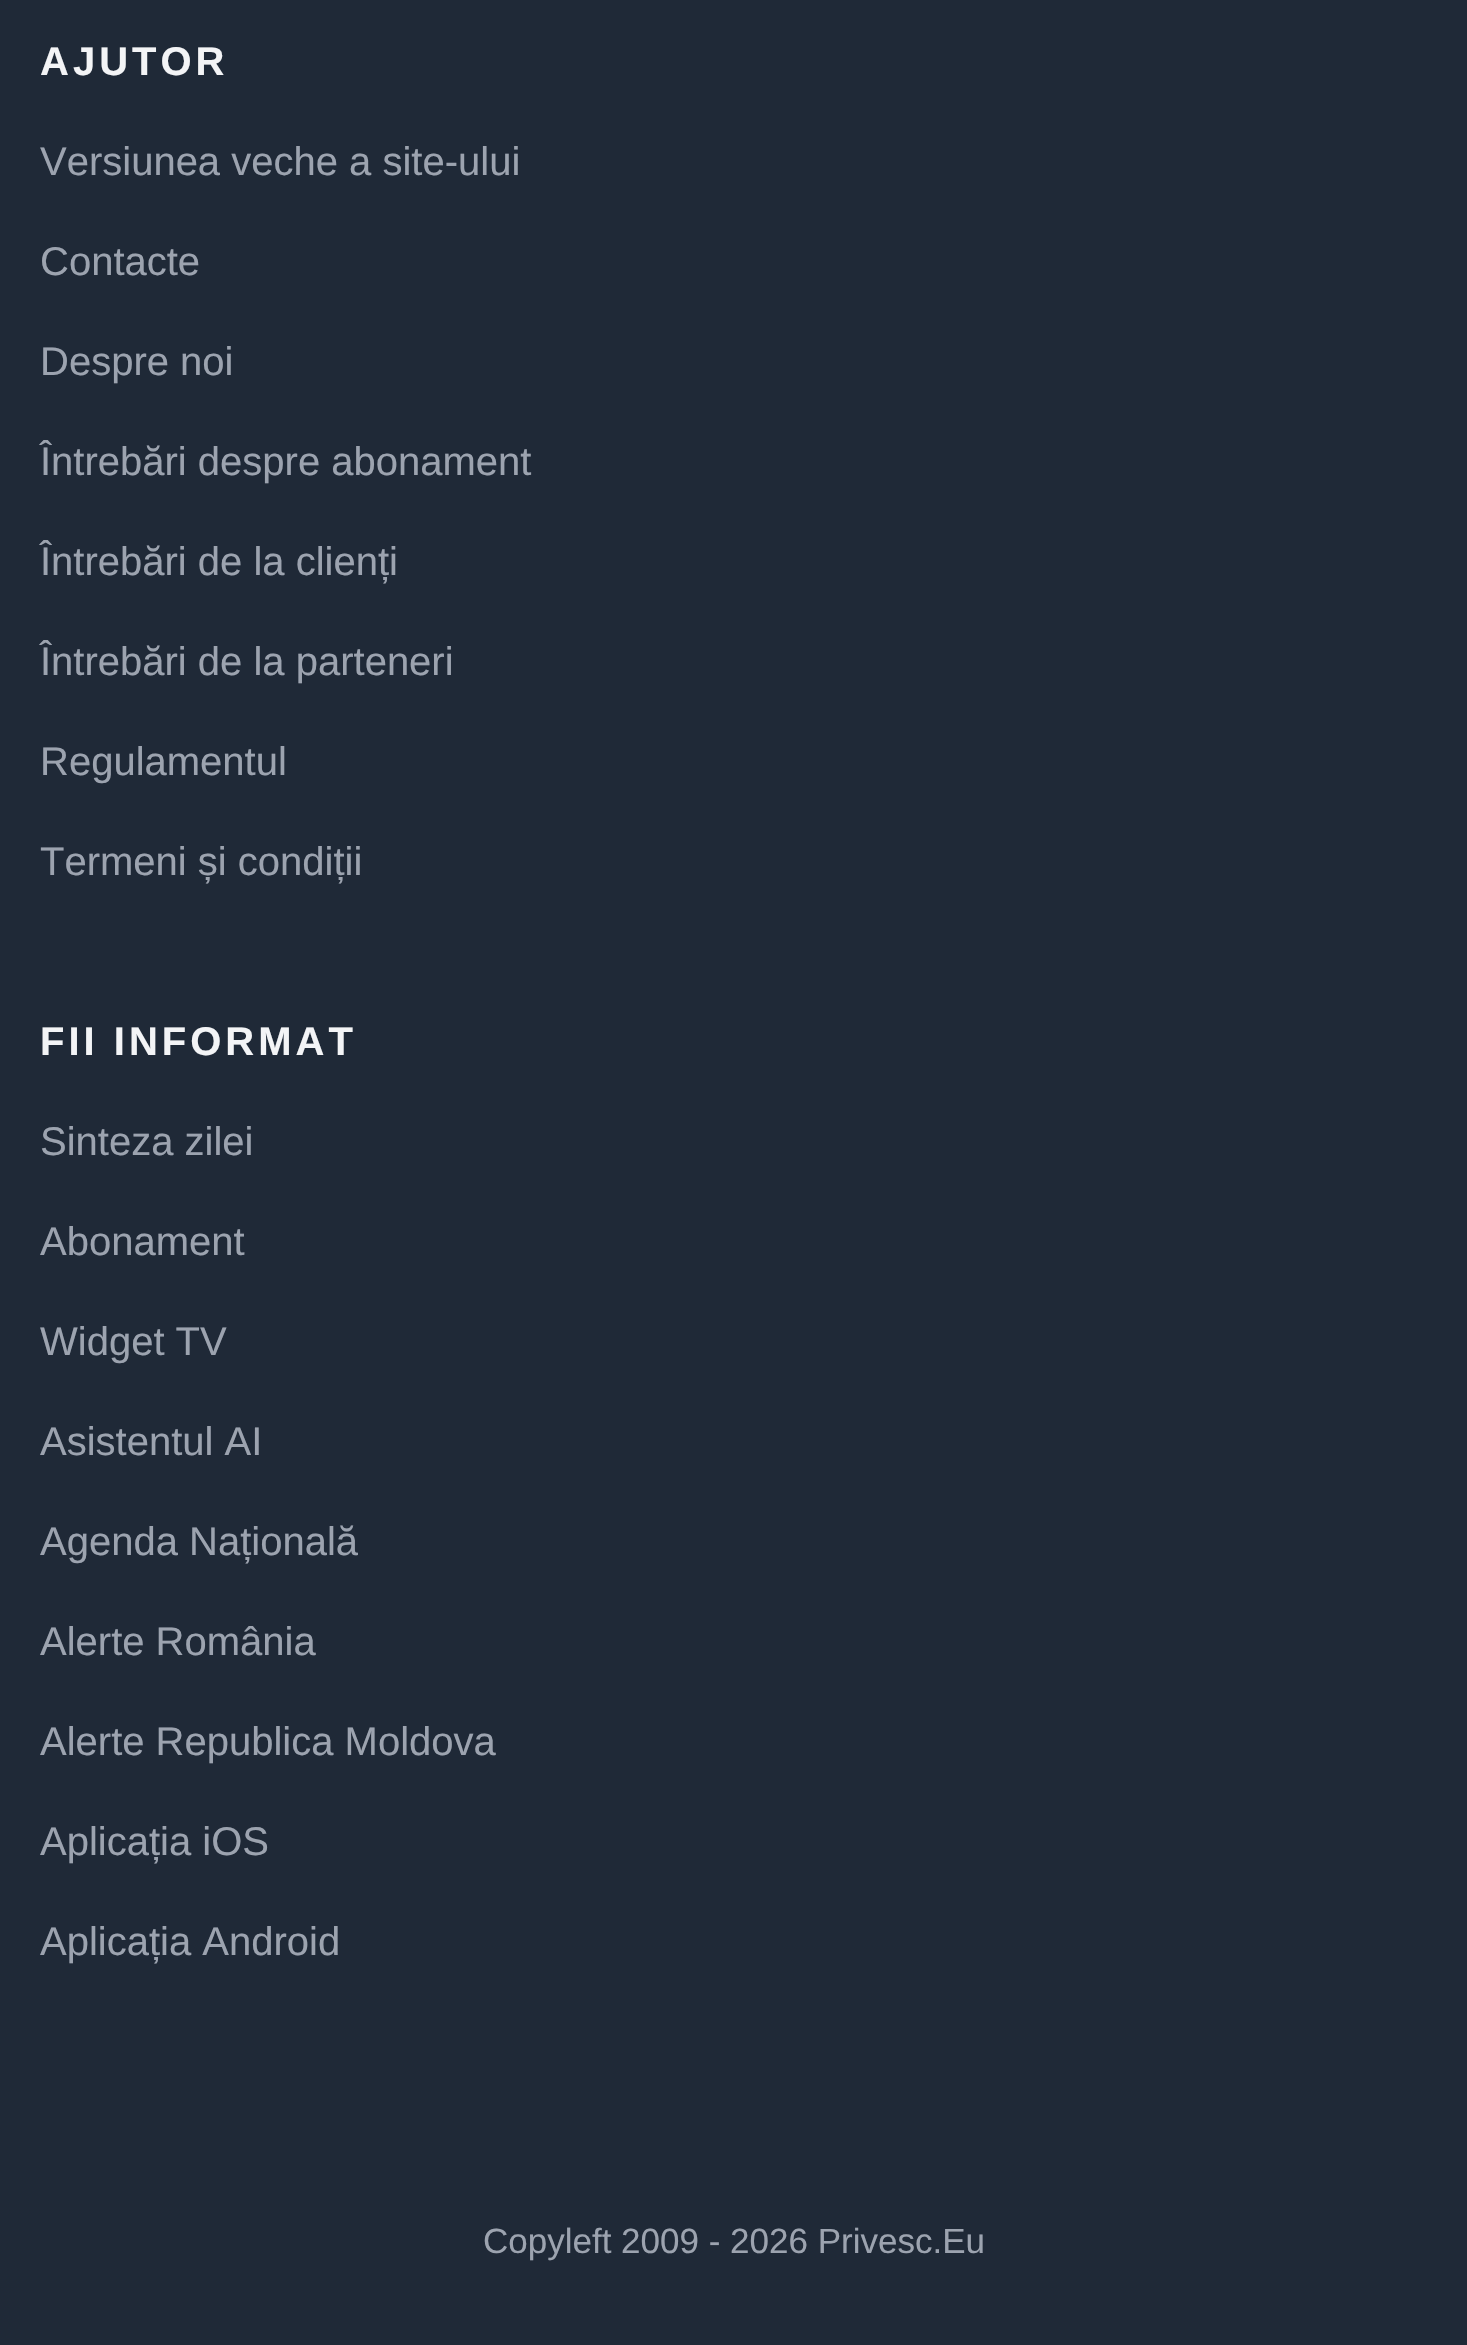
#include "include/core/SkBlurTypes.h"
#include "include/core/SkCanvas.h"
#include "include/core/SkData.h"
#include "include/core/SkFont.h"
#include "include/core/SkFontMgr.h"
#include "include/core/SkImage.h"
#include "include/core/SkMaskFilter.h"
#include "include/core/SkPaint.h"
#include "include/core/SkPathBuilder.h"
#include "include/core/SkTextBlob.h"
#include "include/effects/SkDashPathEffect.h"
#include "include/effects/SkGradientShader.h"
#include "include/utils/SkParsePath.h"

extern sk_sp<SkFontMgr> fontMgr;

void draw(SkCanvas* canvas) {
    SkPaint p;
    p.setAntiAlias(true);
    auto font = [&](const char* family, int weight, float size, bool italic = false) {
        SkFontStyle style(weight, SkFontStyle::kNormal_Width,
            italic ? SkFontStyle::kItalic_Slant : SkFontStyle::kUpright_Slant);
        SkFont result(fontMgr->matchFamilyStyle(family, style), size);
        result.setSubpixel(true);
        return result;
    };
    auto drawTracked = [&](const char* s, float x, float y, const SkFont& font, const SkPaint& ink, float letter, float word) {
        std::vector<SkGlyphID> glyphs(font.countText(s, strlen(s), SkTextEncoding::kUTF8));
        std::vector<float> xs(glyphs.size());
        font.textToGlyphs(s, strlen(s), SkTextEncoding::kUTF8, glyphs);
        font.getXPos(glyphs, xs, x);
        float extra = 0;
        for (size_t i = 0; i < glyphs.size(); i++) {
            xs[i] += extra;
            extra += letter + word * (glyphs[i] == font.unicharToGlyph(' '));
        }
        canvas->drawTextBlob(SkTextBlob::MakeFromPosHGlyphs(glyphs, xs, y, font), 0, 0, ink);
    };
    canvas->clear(0xFF1F2937);
    auto font1 = font("Liberation Sans", 700, 40);
    p.setColor(0xFFF3F4F6);
    drawTracked("AJUTOR", 40, 75, font1, p, 4, 0);
    auto font2 = font("Liberation Sans", 400, 40);
    p.setColor(0xFF9CA3AF);
    {
        const struct { const char* s; float x, y; } items[] = {
            {"Versiunea veche a site-ului", 40, 175},
            {"Contacte", 40, 275},
            {"Despre noi", 40, 375},
            {"Întrebări despre abonament", 40, 475},
            {"Întrebări de la clienți", 40, 575},
            {"Întrebări de la parteneri", 40, 675},
            {"Regulamentul", 40, 775},
            {"Termeni și condiții", 40, 875},
        };
        for (auto [s, x, y] : items) {
            canvas->drawString(s, x, y, font2, p);
        }
    }
    p.setColor(0xFFF3F4F6);
    drawTracked("FII INFORMAT", 40, 1055, font1, p, 4, 0);
    p.setColor(0xFF9CA3AF);
    {
        const struct { const char* s; float x, y; } items[] = {
            {"Sinteza zilei", 40, 1155},
            {"Abonament", 40, 1255},
            {"Widget TV", 40, 1355},
            {"Asistentul AI", 40, 1455},
            {"Agenda Națională", 40, 1555},
            {"Alerte România", 40, 1655},
            {"Alerte Republica Moldova", 40, 1755},
            {"Aplicația iOS", 40, 1855},
            {"Aplicația Android", 40, 1955},
        };
        for (auto [s, x, y] : items) {
            canvas->drawString(s, x, y, font2, p);
        }
    }
    auto font3 = font("Liberation Sans", 400, 35);
    canvas->drawString("Copyleft 2009 - 2026 Privesc.Eu", 483, 2253, font3, p);
}
